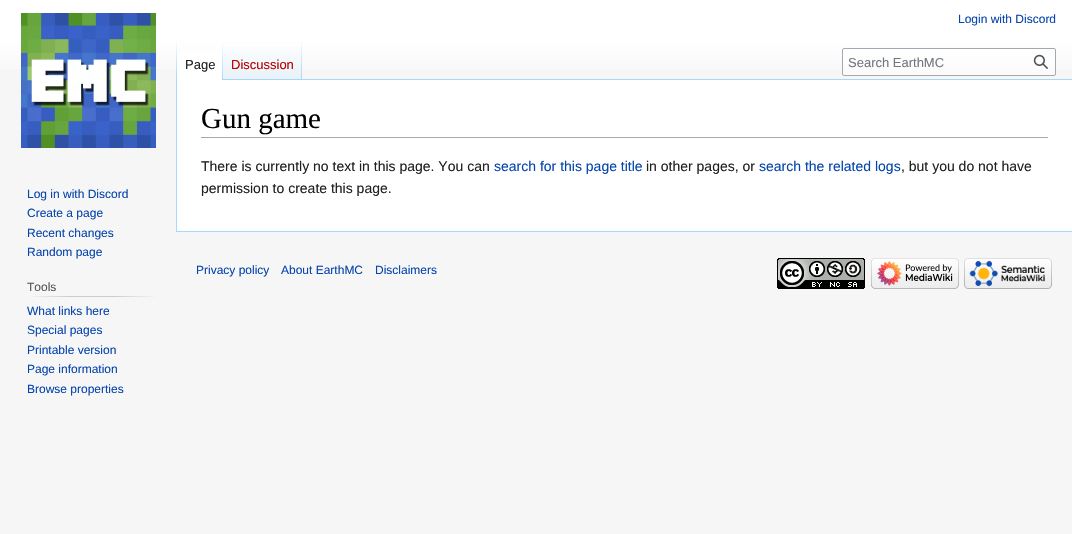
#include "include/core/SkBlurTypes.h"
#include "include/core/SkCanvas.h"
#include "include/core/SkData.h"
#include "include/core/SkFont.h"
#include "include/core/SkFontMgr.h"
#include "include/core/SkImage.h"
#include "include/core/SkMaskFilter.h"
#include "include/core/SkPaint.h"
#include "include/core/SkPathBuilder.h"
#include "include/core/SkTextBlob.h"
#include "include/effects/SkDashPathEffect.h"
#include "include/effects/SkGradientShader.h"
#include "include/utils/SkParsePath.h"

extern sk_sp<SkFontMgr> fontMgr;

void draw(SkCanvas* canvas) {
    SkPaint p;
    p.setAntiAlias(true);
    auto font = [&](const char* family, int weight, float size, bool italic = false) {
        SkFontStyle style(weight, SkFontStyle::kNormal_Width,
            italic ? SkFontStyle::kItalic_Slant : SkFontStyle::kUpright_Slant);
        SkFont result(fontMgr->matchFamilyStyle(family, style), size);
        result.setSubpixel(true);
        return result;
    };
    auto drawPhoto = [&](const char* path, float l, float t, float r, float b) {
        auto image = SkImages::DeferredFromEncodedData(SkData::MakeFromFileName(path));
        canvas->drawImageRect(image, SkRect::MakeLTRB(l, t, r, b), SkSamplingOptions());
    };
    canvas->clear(0xFFF6F6F6);
    {
        const SkColor colors[] = {0xFFFFFFFF, 0xFFF6F6F6};
        const float stops[] = {0.5f, 1};
        const SkPoint ends[] = {{536, 0}, {536, 80}};
        p.setShader(SkGradientShader::MakeLinear(ends, colors, stops, 2, SkTileMode::kClamp));
        p.setAlpha(255);
    }
    canvas->drawRect(SkRect::MakeLTRB(0, 0, 1072, 69), p);
    auto font1 = font("Liberation Sans", 400, 12);
    p.setShader(nullptr);
    p.setColor(0xFF0645AD);
    canvas->drawString("Login with Discord", 958, 23, font1, p);
    p.setColor(0xFFA7D7F9);
    canvas->drawRect(SkRect::MakeLTRB(176, 231, 1072, 232), p);
    canvas->drawRect(SkRect::MakeLTRB(176, 79, 177, 232), p);
    {
        const SkColor colors[] = {0x00A7D7F9, 0xFFA7D7F9};
        const float stops[] = {0, 1};
        const SkPoint ends[] = {{177, 40}, {177, 80}};
        p.setShader(SkGradientShader::MakeLinear(ends, colors, stops, 2, SkTileMode::kClamp));
        p.setAlpha(255);
    }
    canvas->drawRect(SkRect::MakeLTRB(176, 40, 177, 80), p);
    p.setShader(nullptr);
    p.setColor(0xFFFFFFFF);
    canvas->drawRect(SkRect::MakeLTRB(177, 51, 222, 80), p);
    {
        const SkColor colors[] = {0xFFFFFFFF, 0xFFA7D7F9};
        const float stops[] = {0, 1};
        const SkPoint ends[] = {{223, 40}, {223, 80}};
        p.setShader(SkGradientShader::MakeLinear(ends, colors, stops, 2, SkTileMode::kClamp));
        p.setAlpha(255);
    }
    canvas->drawRect(SkRect::MakeLTRB(222, 40, 223, 80), p);
    auto font2 = font("Liberation Sans", 400, 13);
    p.setShader(nullptr);
    p.setColor(0xFF202122);
    canvas->drawString("Page", 185, 69, font2, p);
    {
        const SkColor colors[] = {0xFF77C1F6, 0xFFE8F2F8, 0xFFFFFFFF};
        const float stops[] = {0, 0.03f, 1};
        const SkPoint ends[] = {{263, 80}, {263, 40}};
        p.setShader(SkGradientShader::MakeLinear(ends, colors, stops, 3, SkTileMode::kClamp));
        p.setAlpha(255);
    }
    canvas->drawRect(SkRect::MakeLTRB(223, 46, 302, 80), p);
    {
        const SkColor colors[] = {0x00A7D7F9, 0xFFA7D7F9};
        const float stops[] = {0, 1};
        const SkPoint ends[] = {{302, 40}, {302, 80}};
        p.setShader(SkGradientShader::MakeLinear(ends, colors, stops, 2, SkTileMode::kClamp));
        p.setAlpha(255);
    }
    canvas->drawRect(SkRect::MakeLTRB(301, 40, 302, 80), p);
    p.setShader(nullptr);
    p.setColor(0xFFBA0000);
    canvas->drawString("Discussion", 231, 69, font2, p);
    p.setColor(0x80FFFFFF);
    canvas->drawRoundRect(SkRect::MakeLTRB(842.5f, 48.5f, 1055.5f, 75.5f), 1.5f, 1.5f, p);
    p.setStyle(SkPaint::kStroke_Style);
    p.setStrokeWidth(1);
    p.setColor(0xFFA2A9B1);
    canvas->drawRoundRect(SkRect::MakeLTRB(842.5f, 48.5f, 1055.5f, 75.5f), 1.5f, 1.5f, p);
    p.setStyle(SkPaint::kFill_Style);
    p.setColor(0xFF72777D);
    canvas->drawString("Search EarthMC", 848, 67, font2, p);
    drawPhoto("media/1.png", 1033, 54, 1048, 69);
    drawPhoto("media/2.png", 21, 13, 156, 148);
    p.setColor(0xFF0645AD);
    {
        const struct { const char* s; float x, y; } items[] = {
            {"Log in with Discord", 27, 198},
            {"Create a page", 27, 217},
            {"Recent changes", 27, 237},
            {"Random page", 27, 256},
        };
        for (auto [s, x, y] : items) {
            canvas->drawString(s, x, y, font1, p);
        }
    }
    {
        const SkColor colors[] = {0xFFF6F6F6, 0xFFC8CCD1, 0xFFC8CCD1, 0xFFF6F6F6};
        const float stops[] = {0, 0.33f, 0.66f, 1};
        const SkPoint ends[] = {{27, 297}, {158, 297}};
        p.setShader(SkGradientShader::MakeLinear(ends, colors, stops, 4, SkTileMode::kClamp));
        p.setAlpha(255);
    }
    canvas->drawRect(SkRect::MakeLTRB(27, 296, 158, 297), p);
    p.setShader(nullptr);
    p.setColor(0xFF54595D);
    canvas->drawString("Tools", 27, 291, font1, p);
    p.setColor(0xFF0645AD);
    {
        const struct { const char* s; float x, y; } items[] = {
            {"What links here", 27, 315},
            {"Special pages", 27, 334},
            {"Printable version", 27, 354},
            {"Page information", 27, 373},
            {"Browse properties", 27, 393},
        };
        for (auto [s, x, y] : items) {
            canvas->drawString(s, x, y, font1, p);
        }
    }
    {
        const struct { float l, t, r, b; SkColor color; } items[] = {
            {177, 80, 1072, 231, 0xFFFFFFFF},
            {302, 79, 1072, 80, 0xFFA7D7F9},
            {201, 137, 1048, 138, 0xFFA2A9B1},
        };
        for (auto [l, t, r, b, color] : items) {
            p.setColor(color);
            canvas->drawRect(SkRect::MakeLTRB(l, t, r, b), p);
        }
    }
    auto font3 = font("Liberation Serif", 400, 29);
    p.setColor(0xFF000000);
    canvas->drawString("Gun game", 201, 128, font3, p);
    auto font4 = font("Liberation Sans", 400, 14);
    p.setColor(0xFF202122);
    canvas->drawString("There is currently no text in this page. You can", 201, 171, font4, p);
    p.setColor(0xFF0645AD);
    canvas->drawString("search for this page title", 494, 171, font4, p);
    p.setColor(0xFF202122);
    canvas->drawString("in other pages, or", 646, 171, font4, p);
    p.setColor(0xFF0645AD);
    canvas->drawString("search the related logs", 759, 171, font4, p);
    p.setColor(0xFF202122);
    canvas->drawString(", but you do not have", 901, 171, font4, p);
    canvas->drawString("permission to create this page.", 201, 193, font4, p);
    p.setColor(0xFF0645AD);
    {
        const struct { const char* s; float x, y; } items[] = {
            {"Privacy policy", 196, 274},
            {"About EarthMC", 281, 274},
            {"Disclaimers", 375, 274},
        };
        for (auto [s, x, y] : items) {
            canvas->drawString(s, x, y, font1, p);
        }
    }
    drawPhoto("media/3.png", 777, 258, 865, 289);
    drawPhoto("media/4.png", 871, 258, 959, 289);
    drawPhoto("media/5.png", 964, 258, 1052, 289);
}
